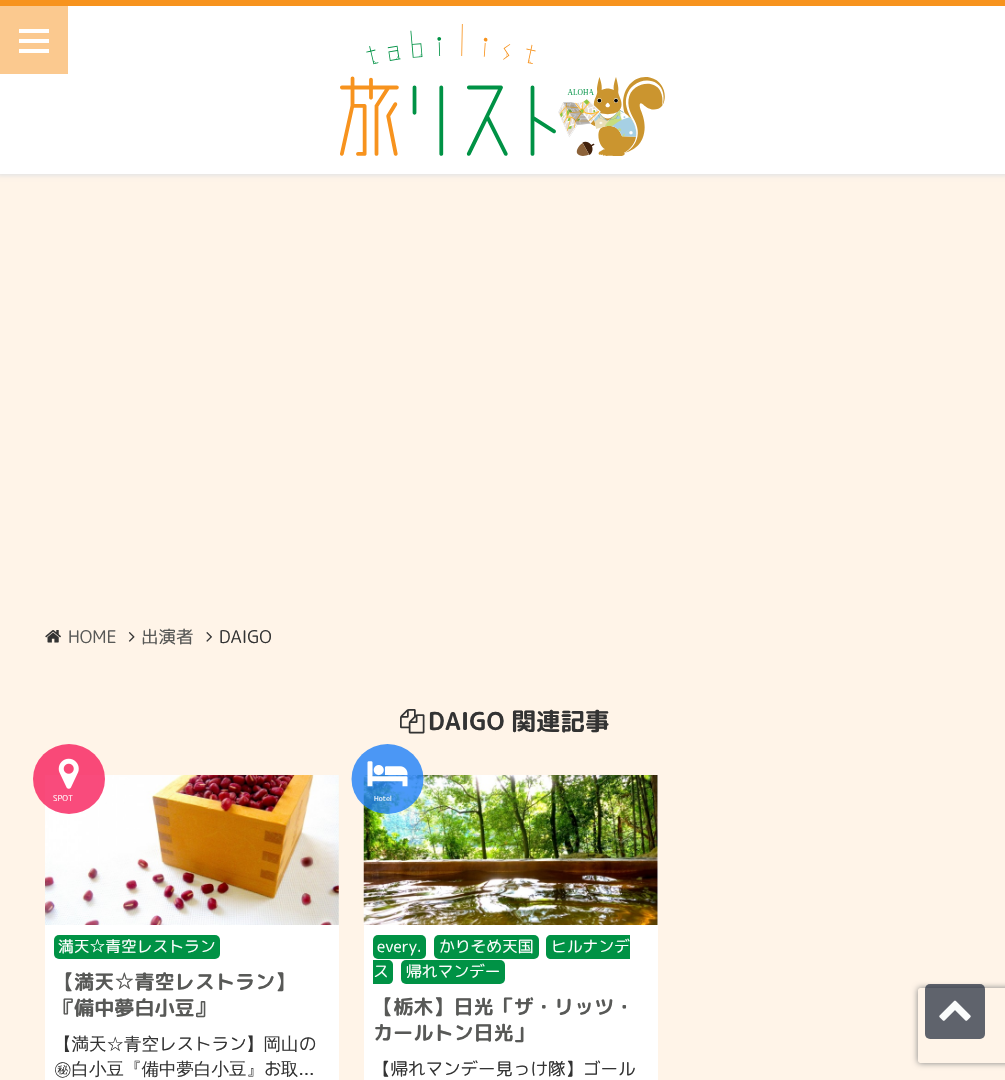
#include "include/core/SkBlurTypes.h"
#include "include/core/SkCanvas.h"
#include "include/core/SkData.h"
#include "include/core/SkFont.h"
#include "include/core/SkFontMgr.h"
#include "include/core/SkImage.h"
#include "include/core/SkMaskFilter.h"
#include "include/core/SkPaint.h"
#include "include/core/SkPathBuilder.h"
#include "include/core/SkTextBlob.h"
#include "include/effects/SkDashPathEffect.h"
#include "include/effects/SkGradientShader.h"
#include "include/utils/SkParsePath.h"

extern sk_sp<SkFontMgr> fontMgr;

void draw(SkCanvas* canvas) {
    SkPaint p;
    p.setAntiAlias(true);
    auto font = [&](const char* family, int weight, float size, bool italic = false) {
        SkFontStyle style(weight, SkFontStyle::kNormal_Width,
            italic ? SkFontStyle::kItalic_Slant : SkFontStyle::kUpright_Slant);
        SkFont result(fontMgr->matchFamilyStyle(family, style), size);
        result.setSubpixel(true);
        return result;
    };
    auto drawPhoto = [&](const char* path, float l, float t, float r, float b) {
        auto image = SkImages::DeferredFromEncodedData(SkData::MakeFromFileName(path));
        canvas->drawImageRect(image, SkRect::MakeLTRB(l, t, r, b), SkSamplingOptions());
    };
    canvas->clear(0xFFFFF4E8);
    p.setColor(0xFFE5E5E5);
    p.setMaskFilter(SkMaskFilter::MakeBlur(kNormal_SkBlurStyle, 2));
    canvas->drawRect(SkRect::MakeLTRB(-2, -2, 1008, 176), p);
    p.setMaskFilter(nullptr);
    {
        const struct { float l, t, r, b; SkColor color; } items[] = {
            {0, 6, 1005, 174, 0xFFFFFFFF},
            {0, 0, 1005, 6, 0xFFF7931E},
            {0, 6, 68, 74, 0xFFFBC98F},
            {19, 29, 49, 33, 0xFFFFFFFF},
            {19, 39, 49, 43, 0xFFFFFFFF},
            {19, 49, 49, 53, 0xFFFFFFFF},
        };
        for (auto [l, t, r, b, color] : items) {
            p.setColor(color);
            canvas->drawRect(SkRect::MakeLTRB(l, t, r, b), p);
        }
    }
    drawPhoto("media/1.png", 340, 24, 665, 156);
    drawPhoto("media/2.png", 45, 630, 61, 643);
    auto font1 = font("Rounded Mplus 1c", 400, 17.5f);
    p.setColor(0xFF585957);
    canvas->drawString("HOME", 68, 643, font1, p);
    drawPhoto("media/3.png", 128, 632, 135, 642);
    canvas->drawString("出演者", 141, 643, font1, p);
    drawPhoto("media/4.png", 206, 632, 212, 642);
    p.setColor(0xFF333333);
    canvas->drawString("DAIGO", 219, 643, font1, p);
    drawPhoto("media/5.png", 400, 709, 425, 734);
    auto font2 = font("Rounded Mplus 1c Bold", 700, 24.5f);
    canvas->drawString("DAIGO 関連記事", 428, 730, font2, p);
    drawPhoto("media/6.png", 45, 775, 339, 925);
    p.setColor(0xCCF71E5B);
    canvas->drawOval(SkRect::MakeLTRB(33, 744, 105, 814), p);
    drawPhoto("media/7.png", 58, 758, 79, 789);
    auto font3 = font("Rounded Mplus 1c", 400, 8);
    p.setColor(0xFFFFFFFF);
    canvas->drawString("SPOT", 53, 801, font3, p);
    canvas->drawRect(SkRect::MakeLTRB(45, 925, 339, 1080), p);
    p.setColor(0xFF009245);
    canvas->drawRoundRect(SkRect::MakeLTRB(54, 935, 220, 959), 5, 5, p);
    auto font4 = font("Rounded Mplus 1c", 400, 15.75f);
    p.setColor(0xFFFFFFFF);
    canvas->drawString("満天☆青空レストラン", 58, 952, font4, p);
    auto font5 = font("Rounded Mplus 1c Bold", 700, 20.1f);
    p.setColor(0xFF585957);
    canvas->drawString("【満天☆青空レストラン】", 54, 989, font5, p);
    canvas->drawString("『備中夢白小豆』", 54, 1015, font5, p);
    auto font6 = font("WenQuanYi Zen Hei", 500, 17.5f);
    p.setColor(0xFF333333);
    canvas->drawString("【満天☆青空", 54, 1050, font6, p);
    canvas->drawString("レストラン", 159, 1050, font1, p);
    canvas->drawString("】岡山", 246, 1050, font6, p);
    canvas->drawString("の", 299, 1050, font1, p);
    canvas->drawString("㊙白小豆『備中夢白小豆』", 54, 1075, font6, p);
    canvas->drawString("お", 264, 1075, font1, p);
    canvas->drawString("取...", 281, 1075, font6, p);
    p.setColor(0xFFFFFFFF);
    canvas->drawRect(SkRect::MakeLTRB(657, 775, 658, 925), p);
    drawPhoto("media/8.png", 363, 775, 658, 925);
    p.setColor(0xCC1E7FF7);
    canvas->drawOval(SkRect::MakeLTRB(351.5f, 744, 423.5f, 814), p);
    drawPhoto("media/9.png", 367, 761, 408, 787);
    auto font7 = font("Rounded Mplus 1c", 400, 7);
    p.setColor(0xFFFFFFFF);
    canvas->drawString("Hotel", 374, 801, font7, p);
    canvas->drawRect(SkRect::MakeLTRB(364, 925, 658, 1080), p);
    p.setColor(0xFF009245);
    canvas->drawRoundRect(SkRect::MakeLTRB(373, 935, 426, 959), 5, 5, p);
    p.setColor(0xFFFFFFFF);
    canvas->drawString("every.", 377, 952, font4, p);
    p.setColor(0xFF009245);
    canvas->drawRoundRect(SkRect::MakeLTRB(434, 935, 539, 959), 5, 5, p);
    p.setColor(0xFFFFFFFF);
    canvas->drawString("かりそめ天国", 439, 952, font4, p);
    p.setColor(0xFF009245);
    canvas->drawPath(SkPathBuilder().moveTo(551, 935).lineTo(630, 935).lineTo(630, 959).lineTo(551, 959).cubicTo(548, 959, 546, 957, 546, 954).lineTo(546, 940).cubicTo(546, 937, 548, 935, 551, 935).close().detach(), p);
    p.setColor(0xFFFFFFFF);
    canvas->drawString("ヒルナンデ", 551, 952, font4, p);
    p.setColor(0xFF009245);
    canvas->drawPath(SkPathBuilder().moveTo(373, 960).lineTo(388, 960).cubicTo(391, 960, 393, 962, 393, 965).lineTo(393, 979).cubicTo(393, 982, 391, 984, 388, 984).lineTo(373, 984).close().detach(), p);
    p.setColor(0xFFFFFFFF);
    canvas->drawString("ス", 373, 977, font4, p);
    p.setColor(0xFF009245);
    canvas->drawRoundRect(SkRect::MakeLTRB(401, 960, 505, 984), 5, 5, p);
    p.setColor(0xFFFFFFFF);
    canvas->drawString("帰れマンデー", 406, 977, font4, p);
    p.setColor(0xFF585957);
    canvas->drawString("【栃木】日光「ザ・リッツ・", 373, 1014, font5, p);
    canvas->drawString("カールトン日光」", 373, 1040, font5, p);
    p.setColor(0xFF333333);
    canvas->drawString("【帰れマンデー見っけ隊】ゴール", 373, 1075, font1, p);
    canvas->save();
    canvas->clipPath(SkPathBuilder(SkPathFillType::kEvenOdd).moveTo(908, 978).lineTo(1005, 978).lineTo(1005, 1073).lineTo(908, 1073).close().moveTo(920.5f, 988).lineTo(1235.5f, 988).cubicTo(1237, 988, 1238, 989, 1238, 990.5f).lineTo(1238, 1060.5f).cubicTo(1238, 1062, 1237, 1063, 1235.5f, 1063).lineTo(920.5f, 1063).cubicTo(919, 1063, 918, 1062, 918, 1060.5f).lineTo(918, 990.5f).cubicTo(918, 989, 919, 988, 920.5f, 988).close().detach(), true);
    p.setColor(0xFF808080);
    p.setMaskFilter(SkMaskFilter::MakeBlur(kNormal_SkBlurStyle, 3));
    canvas->drawRoundRect(SkRect::MakeLTRB(918, 988, 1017, 1063), 2.5f, 2.5f, p);
    p.setMaskFilter(nullptr);
    canvas->restore();
    p.setColor(0xB31B2538);
    canvas->drawRoundRect(SkRect::MakeLTRB(925, 984, 985, 1039), 5, 5, p);
    drawPhoto("media/10.png", 939, 1000, 971, 1021);
}
